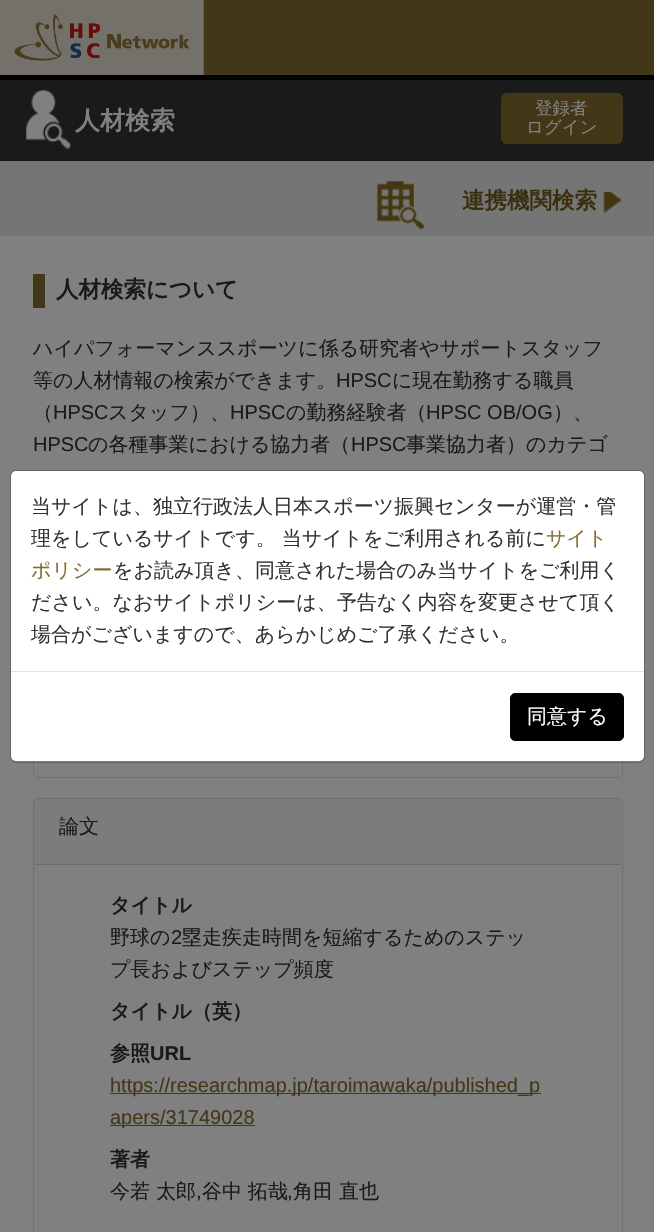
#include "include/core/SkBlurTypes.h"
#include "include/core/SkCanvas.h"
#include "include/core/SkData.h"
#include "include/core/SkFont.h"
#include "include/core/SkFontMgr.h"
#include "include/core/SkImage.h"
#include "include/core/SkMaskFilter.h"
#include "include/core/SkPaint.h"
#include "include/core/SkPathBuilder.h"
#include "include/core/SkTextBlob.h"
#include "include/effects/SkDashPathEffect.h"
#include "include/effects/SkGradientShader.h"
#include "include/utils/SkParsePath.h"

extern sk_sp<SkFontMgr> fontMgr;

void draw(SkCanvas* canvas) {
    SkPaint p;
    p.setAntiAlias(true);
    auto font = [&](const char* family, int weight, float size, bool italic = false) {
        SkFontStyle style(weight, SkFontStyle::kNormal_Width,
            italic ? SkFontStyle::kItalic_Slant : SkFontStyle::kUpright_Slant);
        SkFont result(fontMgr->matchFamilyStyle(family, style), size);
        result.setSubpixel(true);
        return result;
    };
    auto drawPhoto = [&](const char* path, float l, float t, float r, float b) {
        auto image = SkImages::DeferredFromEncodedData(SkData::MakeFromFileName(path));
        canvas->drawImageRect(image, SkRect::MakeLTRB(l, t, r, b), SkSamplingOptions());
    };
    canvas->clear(0xFF808080);
    p.setColor(0xFF423717);
    canvas->drawRect(SkRect::MakeLTRB(0, 0, 654, 75), p);
    p.setColor(0xFF000000);
    canvas->drawRect(SkRect::MakeLTRB(0, 75, 654, 80), p);
    drawPhoto("media/1.png", 0, 0, 204, 75);
    p.setColor(0xFF1A1A1A);
    canvas->drawRect(SkRect::MakeLTRB(0, 80, 654, 160), p);
    drawPhoto("media/2.png", 26, 90, 72, 149);
    p.setColor(0xFF171717);
    canvas->drawRect(SkRect::MakeLTRB(0, 160, 654, 161), p);
    auto font1 = font("WenQuanYi Zen Hei", 700, 25);
    p.setColor(0xFF808080);
    canvas->drawString("人材検索", 75, 129, font1, p);
    p.setColor(0xFF423717);
    canvas->drawRoundRect(SkRect::MakeLTRB(501, 93, 623, 144), 6, 6, p);
    auto font2 = font("WenQuanYi Zen Hei", 500, 17.5f);
    p.setColor(0xFF808080);
    canvas->drawString("登録者", 535, 114, font2, p);
    canvas->drawString("ログイン", 526, 133, font2, p);
    p.setColor(0xFF757575);
    canvas->drawRect(SkRect::MakeLTRB(0, 161, 654, 236), p);
    drawPhoto("media/3.png", 376, 180, 425, 230);
    auto font3 = font("WenQuanYi Zen Hei", 700, 22.5f);
    p.setColor(0xFF3A2F0E);
    canvas->drawString("連携機関検索", 462, 208, font3, p);
    drawPhoto("media/4.png", 603, 192, 622, 214);
    p.setColor(0xFF423717);
    canvas->drawRect(SkRect::MakeLTRB(33, 274, 45, 308), p);
    p.setColor(0xFF1A1A1A);
    canvas->drawString("人材検索について", 56, 297, font3, p);
    auto font4 = font("WenQuanYi Zen Hei", 500, 20);
    canvas->drawString("ハイパフォーマンススポーツに係る研究者やサポートスタッフ", 33, 355, font4, p);
    canvas->drawString("等の人材情報の検索ができます。", 33, 387, font4, p);
    auto font5 = font("Liberation Sans", 400, 20);
    canvas->drawString("HPSC", 336, 387, font5, p);
    canvas->drawString("に現在勤務する職員", 392, 387, font4, p);
    canvas->drawString("（", 33, 419, font4, p);
    canvas->drawString("HPSC", 53, 419, font5, p);
    canvas->drawString("スタッフ）、", 108, 419, font4, p);
    canvas->drawString("HPSC", 230, 419, font5, p);
    canvas->drawString("の勤務経験者（", 286, 419, font4, p);
    canvas->drawString("HPSC OB/OG", 426, 419, font5, p);
    canvas->drawString("）、", 553, 419, font4, p);
    canvas->drawString("HPSC", 33, 451, font5, p);
    canvas->drawString("の各種事業における協力者（", 88, 451, font4, p);
    canvas->drawString("HPSC", 351, 451, font5, p);
    canvas->drawString("事業協力者）のカテゴ", 406, 451, font4, p);
    p.setStyle(SkPaint::kStroke_Style);
    p.setStrokeWidth(1);
    p.setColor(0xFF707070);
    canvas->drawRoundRect(SkRect::MakeLTRB(33.5f, 598.5f, 622.5f, 777.5f), 4.5f, 4.5f, p);
    canvas->drawRoundRect(SkRect::MakeLTRB(33.5f, 798.5f, 622.5f, 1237.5f), 4.5f, 4.5f, p);
    p.setStyle(SkPaint::kFill_Style);
    p.setColor(0x08000000);
    canvas->drawRect(SkRect::MakeLTRB(34, 799, 621, 864), p);
    p.setColor(0xFF6C6C6C);
    canvas->drawRect(SkRect::MakeLTRB(34, 864, 621, 865), p);
    p.setColor(0xFF1A1A1A);
    canvas->drawString("論文", 59, 833, font4, p);
    auto font6 = font("WenQuanYi Zen Hei", 700, 20);
    canvas->drawString("タイトル", 110, 912, font6, p);
    canvas->drawString("野球の", 110, 944, font4, p);
    canvas->drawString("2", 171, 944, font5, p);
    canvas->drawString("塁走疾走時間を短縮するためのステッ", 182, 944, font4, p);
    canvas->drawString("プ長およびステップ頻度", 110, 976, font4, p);
    canvas->drawString("タイトル（英）", 110, 1018, font6, p);
    canvas->drawString("参照", 110, 1060, font6, p);
    auto font7 = font("Liberation Sans", 700, 20);
    canvas->drawString("URL", 150, 1060, font7, p);
    p.setColor(0xFF423717);
    canvas->drawRect(SkRect::MakeLTRB(110, 1093, 541, 1094), p);
    canvas->drawString("https://researchmap.jp/taroimawaka/published_p", 110, 1092, font5, p);
    canvas->drawRect(SkRect::MakeLTRB(110, 1125, 255, 1126), p);
    canvas->drawString("apers/31749028", 110, 1124, font5, p);
    p.setColor(0xFF1A1A1A);
    canvas->drawString("著者", 110, 1166, font6, p);
    canvas->drawString("今若 太郎", 110, 1198, font4, p);
    canvas->drawString(",", 196, 1198, font5, p);
    canvas->drawString("谷中 拓哉", 202, 1198, font4, p);
    canvas->drawString(",", 287, 1198, font5, p);
    canvas->drawString("角田 直也", 293, 1198, font4, p);
    p.setColor(0xFFFFFFFF);
    canvas->drawRoundRect(SkRect::MakeLTRB(11, 471, 644, 761), 5, 5, p);
    p.setStyle(SkPaint::kStroke_Style);
    p.setColor(0x33000000);
    canvas->drawRoundRect(SkRect::MakeLTRB(10.5f, 470.5f, 644.5f, 762.5f), 5.5f, 5.5f, p);
    p.setStyle(SkPaint::kFill_Style);
    p.setColor(0xFF333333);
    canvas->drawString("当サイトは、独立行政法人日本スポーツ振興センターが運営・管", 31, 513, font4, p);
    canvas->drawString("理をしているサイトです。 当サイトをご利用される前に", 31, 545, font4, p);
    p.setColor(0xFF836E2D);
    canvas->drawString("サイト", 546, 545, font4, p);
    canvas->drawString("ポリシー", 31, 577, font4, p);
    p.setColor(0xFF333333);
    {
        const struct { const char* s; float x, y; } items[] = {
            {"をお読み頂き、同意された場合のみ当サイトをご利用く", 113, 577},
            {"ださい。なおサイトポリシーは、予告なく内容を変更させて頂く", 31, 609},
            {"場合がございますので、あらかじめご了承ください。", 31, 641},
        };
        for (auto [s, x, y] : items) {
            canvas->drawString(s, x, y, font4, p);
        }
    }
    p.setColor(0xFFDEE2E6);
    canvas->drawRect(SkRect::MakeLTRB(11, 671, 644, 672), p);
    p.setColor(0xFF000000);
    canvas->drawRoundRect(SkRect::MakeLTRB(510.5f, 693.5f, 623.5f, 740.5f), 4.5f, 4.5f, p);
    p.setStyle(SkPaint::kStroke_Style);
    canvas->drawRoundRect(SkRect::MakeLTRB(510.5f, 693.5f, 623.5f, 740.5f), 4.5f, 4.5f, p);
    p.setStyle(SkPaint::kFill_Style);
    p.setColor(0xFFFFFFFF);
    canvas->drawString("同意する", 527, 723, font4, p);
}
